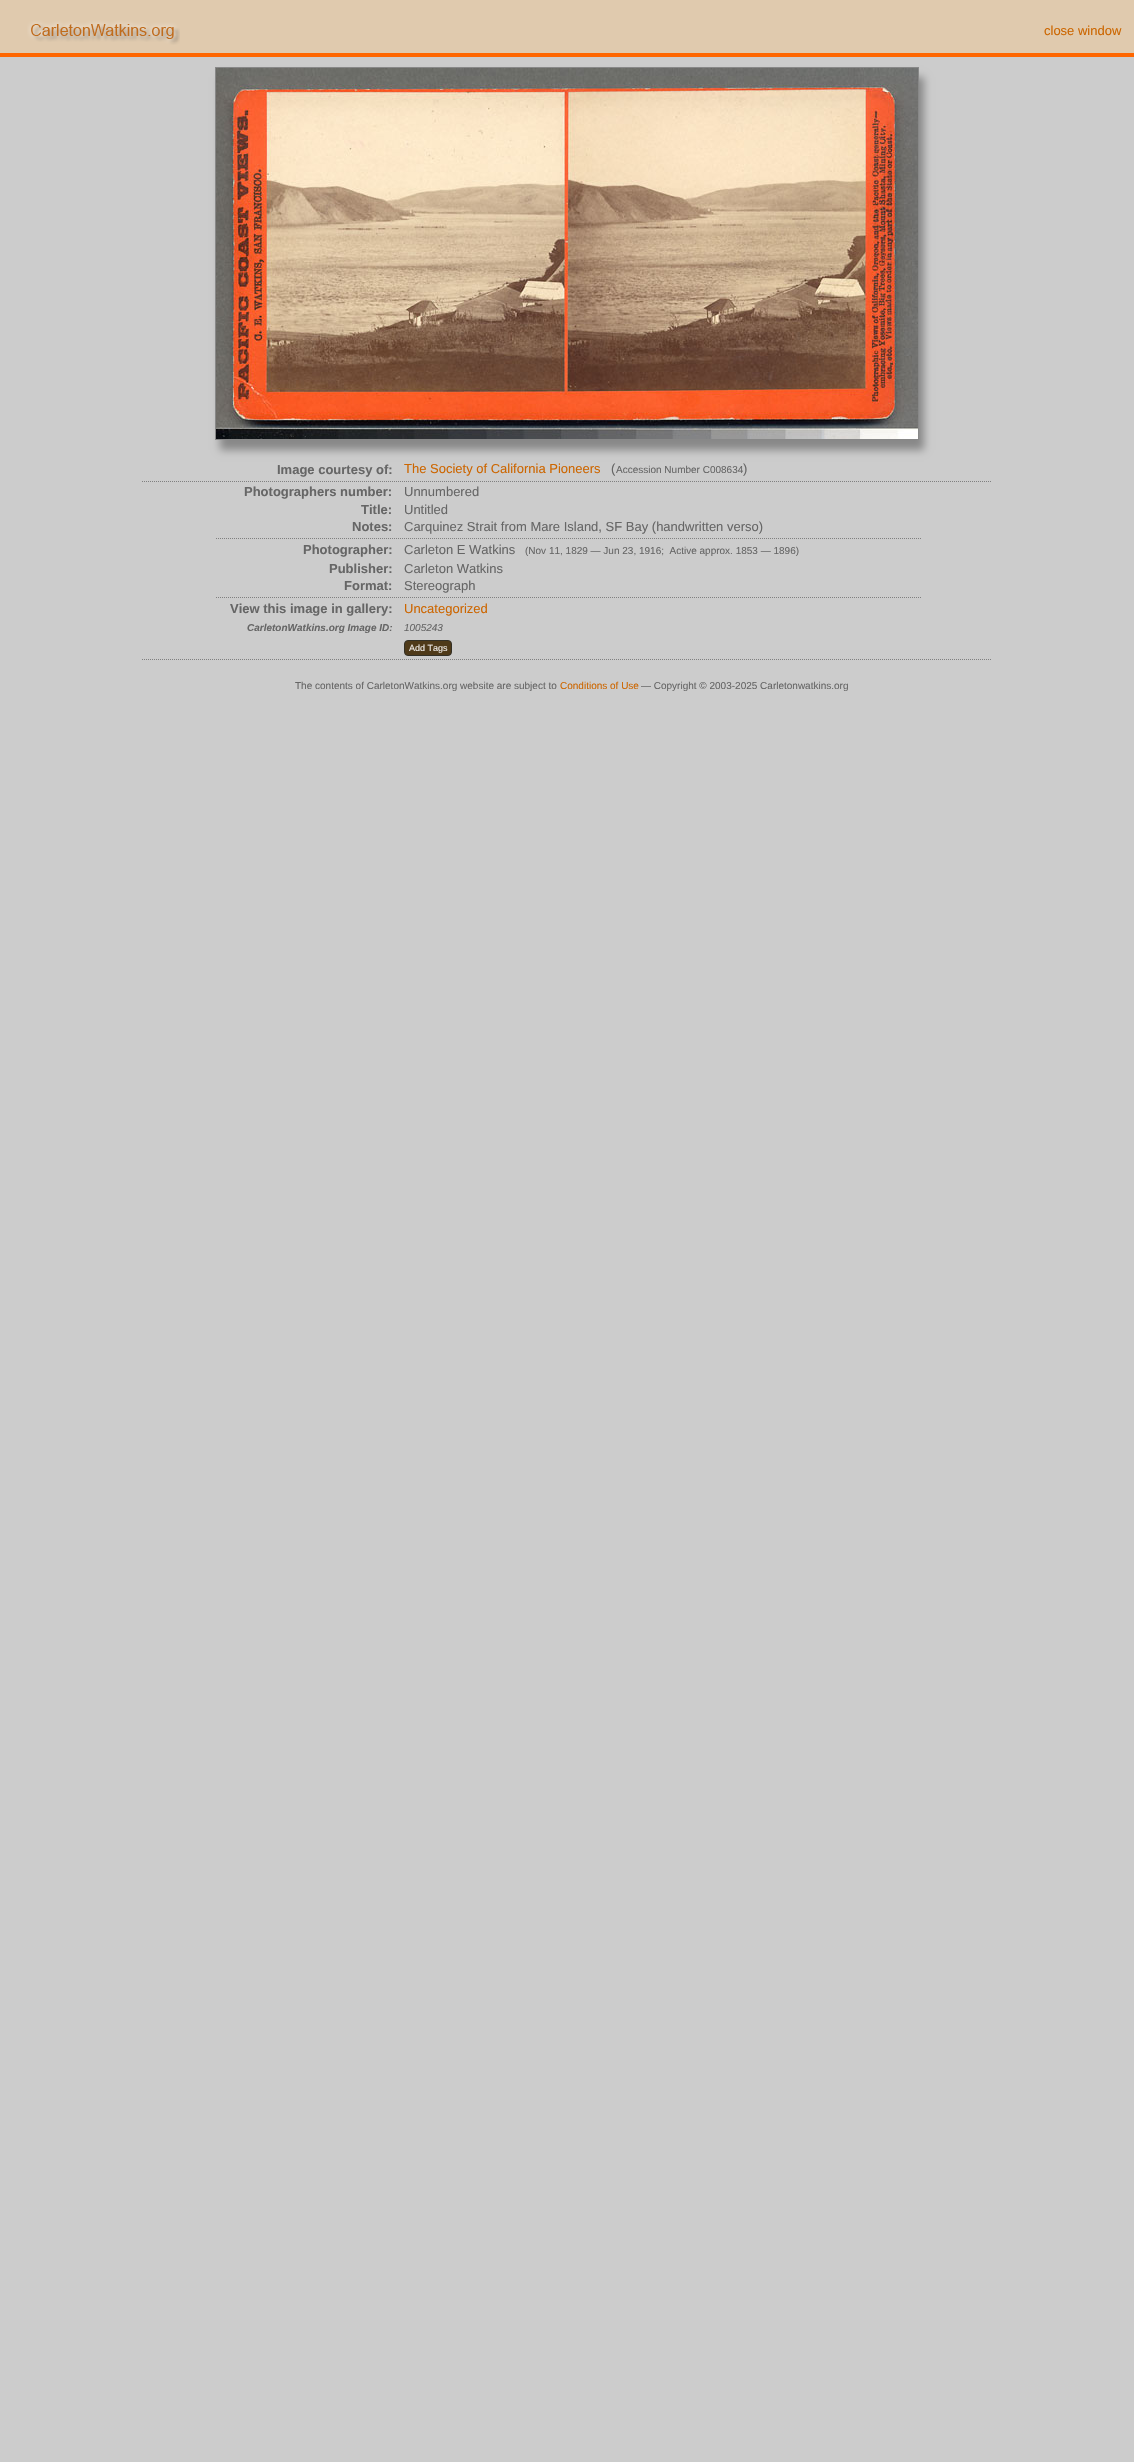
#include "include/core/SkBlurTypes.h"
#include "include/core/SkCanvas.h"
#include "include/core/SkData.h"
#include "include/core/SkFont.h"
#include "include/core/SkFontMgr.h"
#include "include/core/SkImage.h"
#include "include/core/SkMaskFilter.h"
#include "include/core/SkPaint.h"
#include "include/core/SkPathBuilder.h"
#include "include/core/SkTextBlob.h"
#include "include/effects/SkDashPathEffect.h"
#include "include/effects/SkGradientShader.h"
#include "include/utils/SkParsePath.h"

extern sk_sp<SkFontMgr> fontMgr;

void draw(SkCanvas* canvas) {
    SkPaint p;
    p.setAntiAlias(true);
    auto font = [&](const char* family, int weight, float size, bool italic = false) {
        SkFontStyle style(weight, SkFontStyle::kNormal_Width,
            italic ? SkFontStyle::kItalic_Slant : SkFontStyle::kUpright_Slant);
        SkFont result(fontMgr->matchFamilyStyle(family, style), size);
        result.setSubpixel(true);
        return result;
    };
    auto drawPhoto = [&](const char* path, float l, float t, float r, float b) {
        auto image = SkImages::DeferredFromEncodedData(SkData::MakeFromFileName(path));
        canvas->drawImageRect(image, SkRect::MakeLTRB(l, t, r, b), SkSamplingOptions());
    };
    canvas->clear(0xFFCCCCCC);
    p.setColor(0xFFE0CAAE);
    canvas->drawRect(SkRect::MakeLTRB(0, 0, 1134, 53), p);
    p.setColor(0xFFFF6600);
    canvas->drawRect(SkRect::MakeLTRB(0, 53, 1134, 57), p);
    drawPhoto("media/1.png", 27, 20, 180, 45);
    auto font1 = font("Liberation Sans", 400, 13);
    p.setColor(0xFFCC6600);
    canvas->drawString("close window", 1044, 35, font1, p);
    p.setColor(0xFF888888);
    p.setMaskFilter(SkMaskFilter::MakeBlur(kNormal_SkBlurStyle, 4));
    canvas->drawRect(SkRect::MakeLTRB(220, 77, 924, 450), p);
    p.setMaskFilter(nullptr);
    p.setStyle(SkPaint::kStroke_Style);
    p.setStrokeWidth(1);
    canvas->drawRect(SkRect::MakeLTRB(215.5f, 67.5f, 918.5f, 439.5f), p);
    drawPhoto("media/2.png", 216, 68, 918, 439);
    auto font2 = font("Liberation Sans", 700, 13);
    p.setStyle(SkPaint::kFill_Style);
    p.setColor(0xFF666666);
    canvas->drawString("Image courtesy of:", 277, 474, font2, p);
    p.setColor(0xFFCC6600);
    canvas->drawString("The Society of California Pioneers", 404, 473, font1, p);
    p.setColor(0xFF666666);
    canvas->drawString("(", 611, 473, font1, p);
    auto font3 = font("Liberation Sans", 400, 10);
    canvas->drawString("Accession Number C008634", 616, 473, font3, p);
    canvas->drawString(")", 743, 473, font1, p);
    p.setStyle(SkPaint::kStroke_Style);
    p.setColor(0xFF808080);
    p.setPathEffect(SkDashPathEffect::Make({{1, 1}}, 0));
    canvas->drawPath(SkPathBuilder().moveTo(142, 481.5f).lineTo(992, 481.5f).detach(), p);
    p.setPathEffect(nullptr);
    p.setPathEffect(SkDashPathEffect::Make({{1, 1}}, 0));
    canvas->drawPath(SkPathBuilder().moveTo(142, 659.5f).lineTo(992, 659.5f).detach(), p);
    p.setPathEffect(nullptr);
    p.setStyle(SkPaint::kFill_Style);
    p.setColor(0xFF666666);
    canvas->drawString("Photographers number:", 244, 496, font2, p);
    canvas->drawString("Unnumbered", 404, 496, font1, p);
    canvas->drawString("Title:", 361, 514, font2, p);
    canvas->drawString("Untitled", 404, 514, font1, p);
    canvas->drawString("Notes:", 352, 531, font2, p);
    canvas->drawString("Carquinez Strait from Mare Island, SF Bay (handwritten verso)", 404, 531, font1, p);
    p.setStyle(SkPaint::kStroke_Style);
    p.setColor(0xFF808080);
    p.setPathEffect(SkDashPathEffect::Make({{1, 1}}, 0));
    canvas->drawPath(SkPathBuilder().moveTo(216, 538.5f).lineTo(922, 538.5f).detach(), p);
    p.setPathEffect(nullptr);
    p.setStyle(SkPaint::kFill_Style);
    p.setColor(0xFF666666);
    canvas->drawString("Photographer:", 303, 554, font2, p);
    canvas->drawString("Carleton E Watkins", 404, 554, font1, p);
    canvas->drawString("(Nov 11, 1829 — Jun 23, 1916;  Active approx. 1853 — 1896)", 525, 554, font3, p);
    canvas->drawString("Publisher:", 329, 573, font2, p);
    canvas->drawString("Carleton Watkins", 404, 573, font1, p);
    canvas->drawString("Format:", 344, 590, font2, p);
    canvas->drawString("Stereograph", 404, 590, font1, p);
    p.setStyle(SkPaint::kStroke_Style);
    p.setColor(0xFF808080);
    p.setPathEffect(SkDashPathEffect::Make({{1, 1}}, 0));
    canvas->drawPath(SkPathBuilder().moveTo(216, 597.5f).lineTo(922, 597.5f).detach(), p);
    p.setPathEffect(nullptr);
    p.setStyle(SkPaint::kFill_Style);
    p.setColor(0xFF666666);
    canvas->drawString("View this image in gallery:", 230, 613, font2, p);
    p.setColor(0xFFCC6600);
    canvas->drawString("Uncategorized", 404, 613, font1, p);
    auto font4 = font("Liberation Sans", 700, 10, true);
    p.setColor(0xFF666666);
    canvas->drawString("CarletonWatkins.org Image ID:", 247, 631, font4, p);
    auto font5 = font("Liberation Sans", 400, 10, true);
    canvas->drawString("1005243", 404, 631, font5, p);
    p.setColor(0xFF4F3A19);
    canvas->drawRoundRect(SkRect::MakeLTRB(404.5f, 640.5f, 451.5f, 655.5f), 3.5f, 3.5f, p);
    p.setStyle(SkPaint::kStroke_Style);
    p.setColor(0xFF333026);
    canvas->drawRoundRect(SkRect::MakeLTRB(404.5f, 640.5f, 451.5f, 655.5f), 3.5f, 3.5f, p);
    auto font6 = font("Liberation Sans", 400, 9);
    p.setStyle(SkPaint::kFill_Style);
    p.setColor(0xFFEDE9E5);
    canvas->drawString("Add Tags", 409, 651, font6, p);
    p.setColor(0xFF666666);
    canvas->drawString("The contents of CarletonWatkins.org website are subject to", 295, 689, font3, p);
    p.setColor(0xFFCC6600);
    canvas->drawString("Conditions of Use", 560, 689, font3, p);
    p.setColor(0xFF666666);
    canvas->drawString("— Copyright © 2003-2025 Carletonwatkins.org", 641, 689, font3, p);
}
